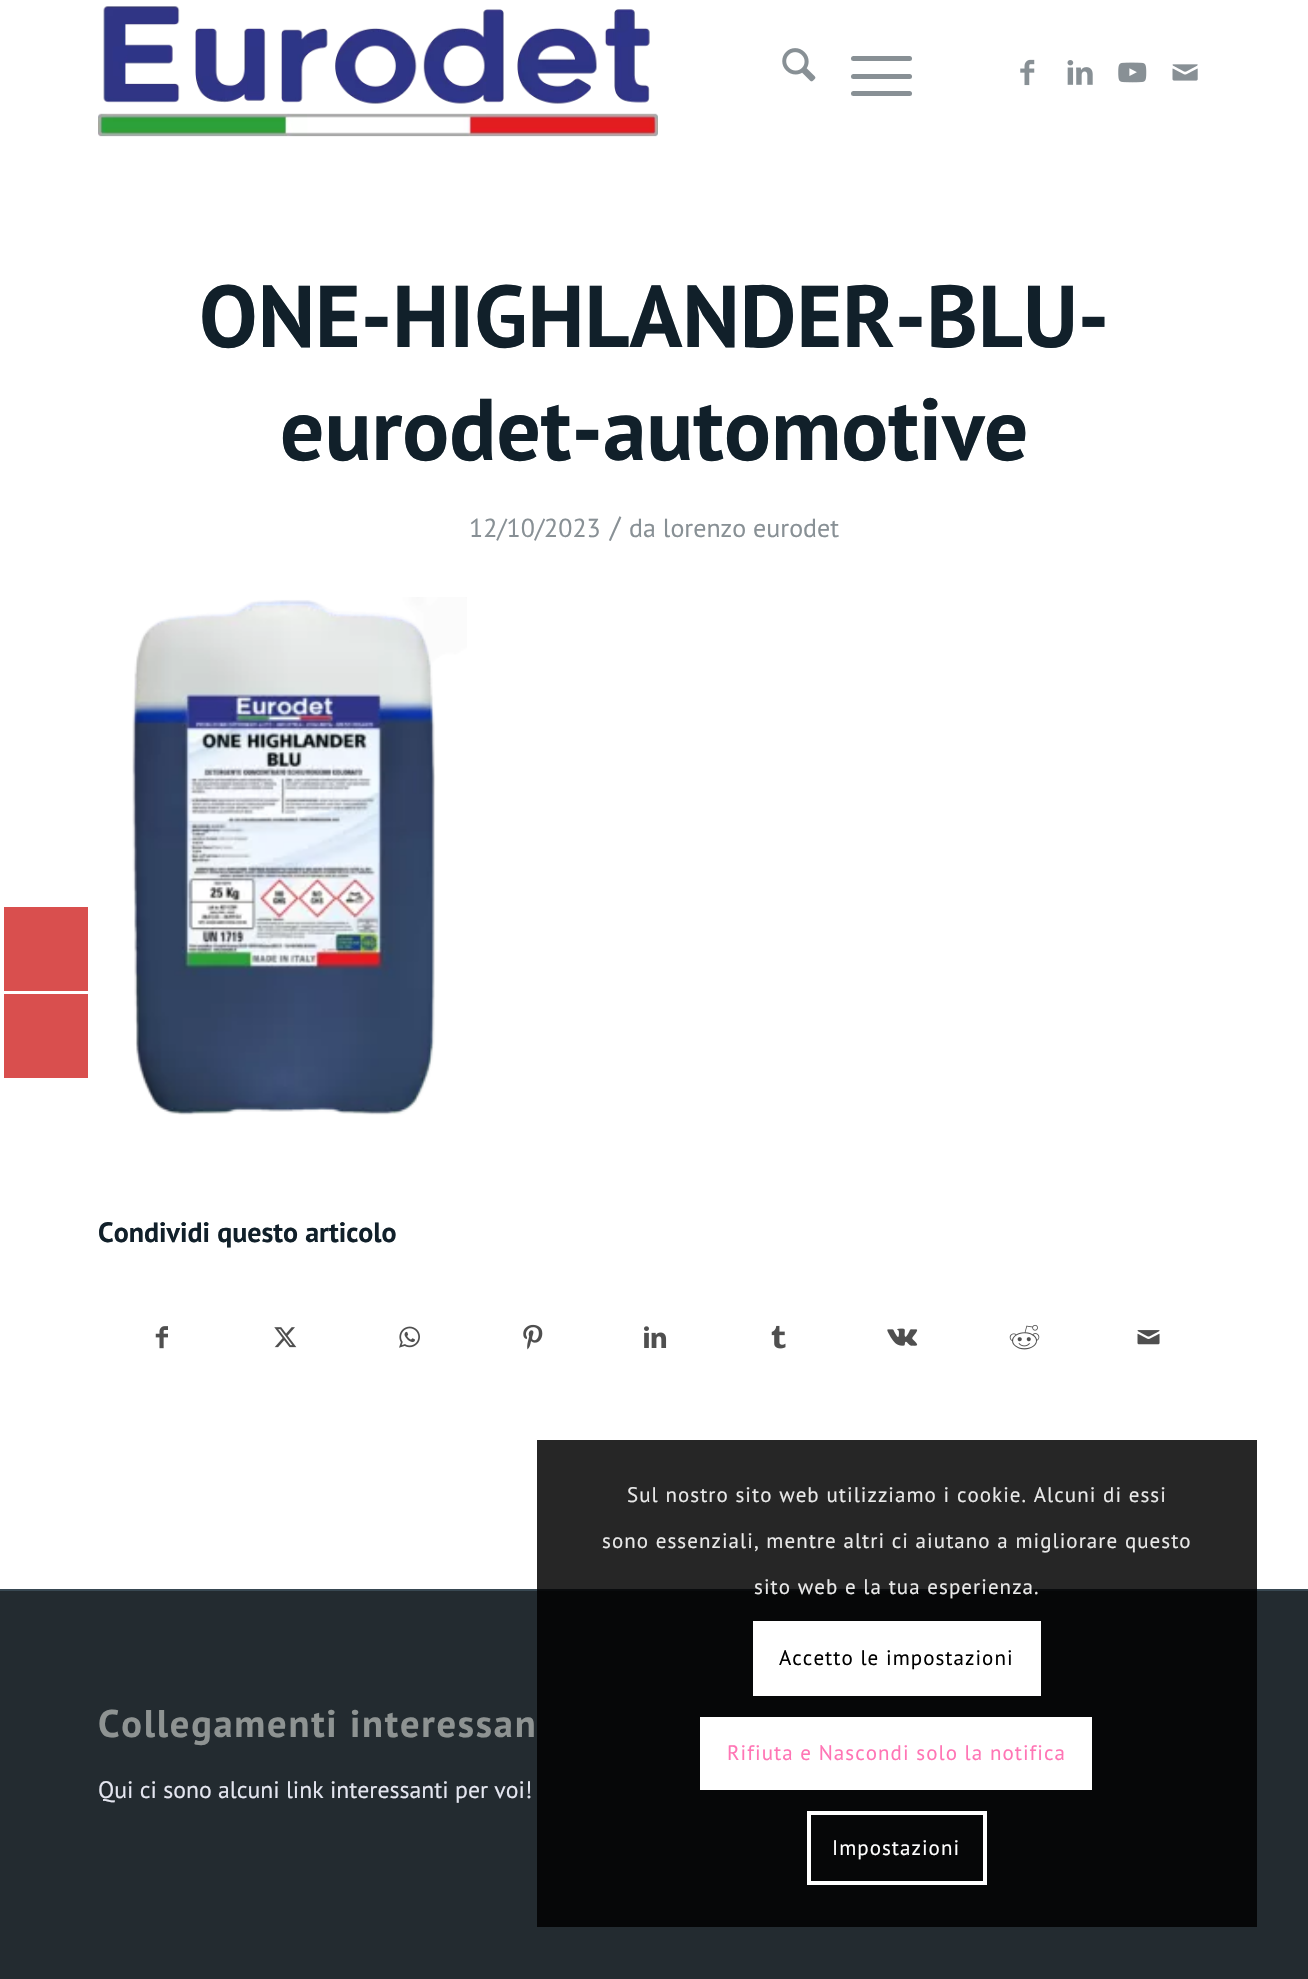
#include "include/core/SkBlurTypes.h"
#include "include/core/SkCanvas.h"
#include "include/core/SkData.h"
#include "include/core/SkFont.h"
#include "include/core/SkFontMgr.h"
#include "include/core/SkImage.h"
#include "include/core/SkMaskFilter.h"
#include "include/core/SkPaint.h"
#include "include/core/SkPathBuilder.h"
#include "include/core/SkTextBlob.h"
#include "include/effects/SkDashPathEffect.h"
#include "include/effects/SkGradientShader.h"
#include "include/utils/SkParsePath.h"

extern sk_sp<SkFontMgr> fontMgr;

void draw(SkCanvas* canvas) {
    SkPaint p;
    p.setAntiAlias(true);
    auto font = [&](const char* family, int weight, float size, bool italic = false) {
        SkFontStyle style(weight, SkFontStyle::kNormal_Width,
            italic ? SkFontStyle::kItalic_Slant : SkFontStyle::kUpright_Slant);
        SkFont result(fontMgr->matchFamilyStyle(family, style), size);
        result.setSubpixel(true);
        return result;
    };
    auto drawTracked = [&](const char* s, float x, float y, const SkFont& font, const SkPaint& ink, float letter, float word) {
        std::vector<SkGlyphID> glyphs(font.countText(s, strlen(s), SkTextEncoding::kUTF8));
        std::vector<float> xs(glyphs.size());
        font.textToGlyphs(s, strlen(s), SkTextEncoding::kUTF8, glyphs);
        font.getXPos(glyphs, xs, x);
        float extra = 0;
        for (size_t i = 0; i < glyphs.size(); i++) {
            xs[i] += extra;
            extra += letter + word * (glyphs[i] == font.unicharToGlyph(' '));
        }
        canvas->drawTextBlob(SkTextBlob::MakeFromPosHGlyphs(glyphs, xs, y, font), 0, 0, ink);
    };
    auto drawPhoto = [&](const char* path, float l, float t, float r, float b) {
        auto image = SkImages::DeferredFromEncodedData(SkData::MakeFromFileName(path));
        canvas->drawImageRect(image, SkRect::MakeLTRB(l, t, r, b), SkSamplingOptions());
    };
    canvas->clear(0xFFFFFFFF);
    p.setColor(0xFFD94F4E);
    canvas->drawRect(SkRect::MakeLTRB(4, 907, 88, 991), p);
    canvas->drawRect(SkRect::MakeLTRB(4, 994, 88, 1078), p);
    drawPhoto("media/1.png", 98, 6, 658, 137);
    drawPhoto("media/2.png", 782, 48, 816, 82);
    p.setColor(0xFF889095);
    canvas->drawRoundRect(SkRect::MakeLTRB(851, 74, 912, 79), 2.5f, 2.5f, p);
    canvas->drawRoundRect(SkRect::MakeLTRB(851, 56, 912, 61), 2.5f, 2.5f, p);
    canvas->drawRoundRect(SkRect::MakeLTRB(851, 91, 912, 96), 2.5f, 2.5f, p);
    drawPhoto("media/3.png", 1020, 59, 1035, 86);
    drawPhoto("media/4.png", 1067, 60, 1093, 85);
    drawPhoto("media/5.png", 1118, 62, 1147, 83);
    drawPhoto("media/6.png", 1172, 64, 1198, 81);
    auto font1 = font("PT Sans", 700, 87.5f);
    p.setColor(0xFF11202A);
    canvas->drawString("ONE-HIGHLANDER-BLU-", 199, 347, font1, p);
    canvas->drawString("eurodet-automotive", 280, 460, font1, p);
    auto font2 = font("PT Sans", 400, 26);
    p.setColor(0xFF889095);
    canvas->drawString("12/10/2023", 469, 537, font2, p);
    auto font3 = font("PT Sans", 400, 29);
    canvas->drawString("/", 610, 537, font3, p);
    canvas->drawString("da lorenzo eurodet", 629, 537, font2, p);
    drawPhoto("media/7.png", 132, 597, 467, 1115);
    auto font4 = font("PT Sans", 700, 28);
    p.setColor(0xFF11202A);
    canvas->drawString("Condividi questo articolo", 98, 1242, font4, p);
    drawPhoto("media/8.png", 155, 1326, 168, 1349);
    drawPhoto("media/9.png", 274, 1327, 297, 1348);
    drawPhoto("media/10.png", 399, 1326, 420, 1348);
    drawPhoto("media/11.png", 523, 1324, 543, 1350);
    drawPhoto("media/12.png", 644, 1326, 667, 1348);
    drawPhoto("media/13.png", 771, 1325, 786, 1349);
    drawPhoto("media/14.png", 887, 1328, 918, 1346);
    drawPhoto("media/15.png", 1009, 1324, 1040, 1350);
    drawPhoto("media/16.png", 1137, 1330, 1160, 1345);
    p.setColor(0xFF232B30);
    canvas->drawRect(SkRect::MakeLTRB(0, 1591, 1308, 1979), p);
    p.setColor(0xFF384852);
    canvas->drawRect(SkRect::MakeLTRB(0, 1589, 1308, 1591), p);
    auto font5 = font("PT Sans", 700, 38.5f);
    p.setColor(0xFF8E9392);
    drawTracked("Collegamenti interessan", 98, 1737, font5, p, 1.75f, 0);
    auto font6 = font("PT Sans", 400, 23.75f);
    p.setColor(0xFFE4E6F0);
    canvas->drawString("Qui ci sono alcuni link interessanti per voi!", 98, 1798, font6, p);
    p.setColor(0xD9000000);
    canvas->drawRect(SkRect::MakeLTRB(537, 1440, 1257, 1927), p);
    auto font7 = font("PT Sans", 400, 21);
    p.setColor(0xFFE9E9E9);
    {
        const struct { const char* s; float x, y; } items[] = {
            {"Sul nostro sito web utilizziamo i cookie. Alcuni di essi", 627, 1502},
            {"sono essenziali, mentre altri ci aiutano a migliorare questo", 602, 1548},
            {"sito web e la tua esperienza.", 754, 1594},
        };
        for (auto [s, x, y] : items) {
            drawTracked(s, x, y, font7, p, 1.05f, 0);
        }
    }
    p.setColor(0xFFFFFFFF);
    canvas->drawRect(SkRect::MakeLTRB(753, 1621, 1041, 1696), p);
    p.setColor(0xFF000000);
    drawTracked("Accetto le impostazioni", 779, 1665, font7, p, 1.05f, 0);
    p.setColor(0xFFFFFFFF);
    canvas->drawRect(SkRect::MakeLTRB(700, 1717, 1092, 1790), p);
    p.setColor(0xFFFF75B5);
    drawTracked("Rifiuta e Nascondi solo la notifica", 727, 1760, font7, p, 1.05f, 0);
    p.setStyle(SkPaint::kStroke_Style);
    p.setStrokeWidth(4);
    p.setColor(0xFFFFFFFF);
    canvas->drawRect(SkRect::MakeLTRB(809, 1813, 985, 1883), p);
    p.setStyle(SkPaint::kFill_Style);
    drawTracked("Impostazioni", 832, 1855, font7, p, 1.05f, 0);
}
